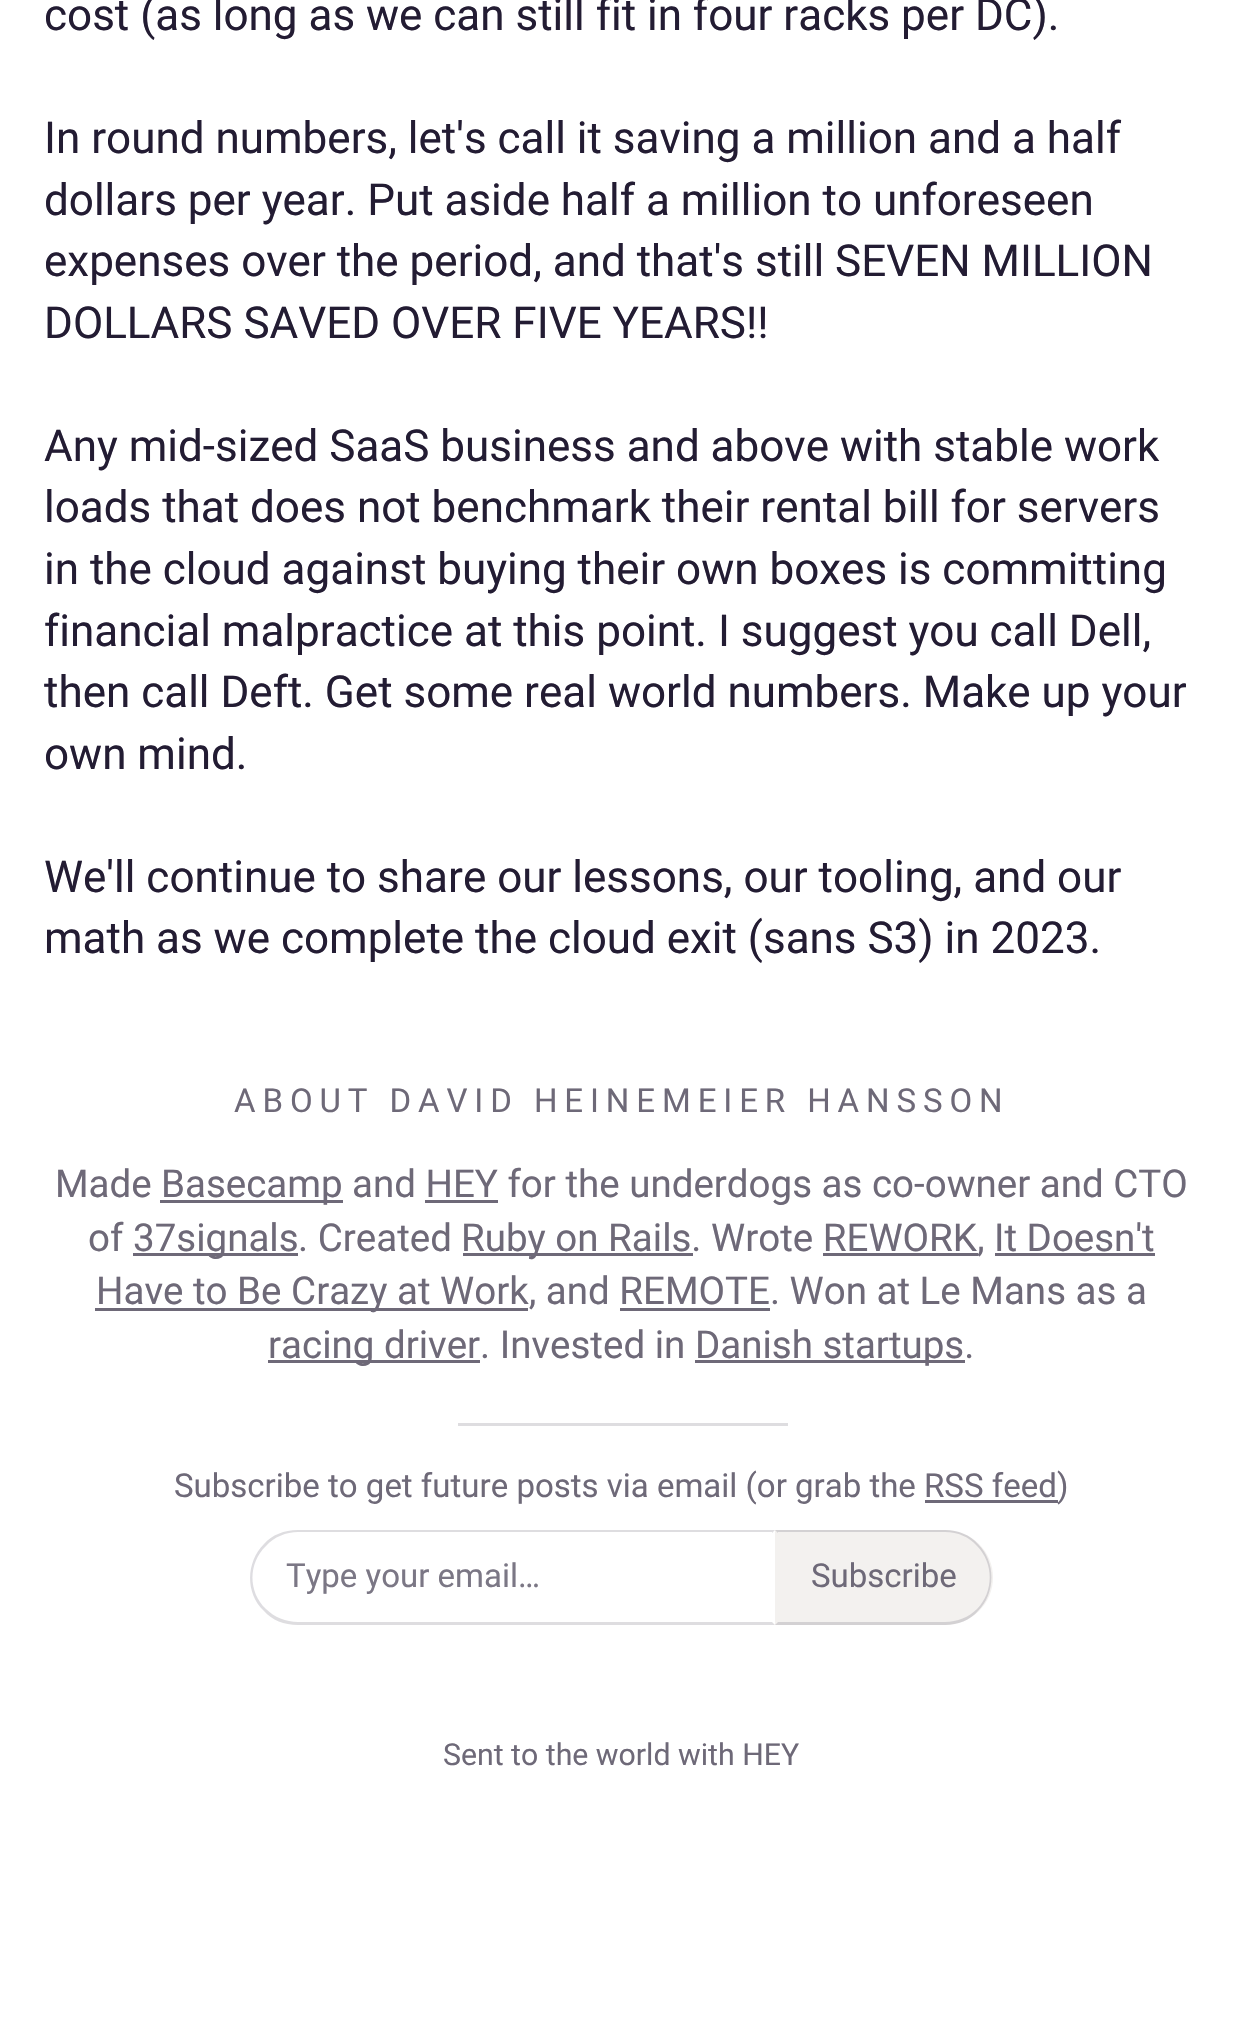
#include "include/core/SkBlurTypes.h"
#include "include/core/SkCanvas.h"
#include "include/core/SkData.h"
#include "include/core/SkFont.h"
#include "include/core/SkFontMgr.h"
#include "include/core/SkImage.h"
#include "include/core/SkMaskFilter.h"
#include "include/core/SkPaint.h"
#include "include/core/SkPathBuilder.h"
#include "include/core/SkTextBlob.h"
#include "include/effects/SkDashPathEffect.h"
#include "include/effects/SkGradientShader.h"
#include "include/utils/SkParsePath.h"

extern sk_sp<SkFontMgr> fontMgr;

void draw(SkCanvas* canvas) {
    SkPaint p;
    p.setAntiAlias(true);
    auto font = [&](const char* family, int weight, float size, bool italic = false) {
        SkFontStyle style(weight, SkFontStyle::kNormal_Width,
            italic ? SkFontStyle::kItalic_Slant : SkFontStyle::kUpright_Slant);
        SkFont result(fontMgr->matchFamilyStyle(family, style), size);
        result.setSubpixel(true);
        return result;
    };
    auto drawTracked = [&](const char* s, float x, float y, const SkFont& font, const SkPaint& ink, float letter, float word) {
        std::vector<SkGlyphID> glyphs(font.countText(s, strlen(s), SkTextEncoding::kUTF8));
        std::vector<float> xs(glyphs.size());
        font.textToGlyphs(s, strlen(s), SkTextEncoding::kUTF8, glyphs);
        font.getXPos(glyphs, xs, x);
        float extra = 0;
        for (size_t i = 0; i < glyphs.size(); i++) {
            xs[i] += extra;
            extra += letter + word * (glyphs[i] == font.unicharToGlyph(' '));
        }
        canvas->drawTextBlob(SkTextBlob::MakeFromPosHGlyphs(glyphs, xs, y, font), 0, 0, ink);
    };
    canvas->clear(0xFFFFFFFF);
    auto font1 = font("Roboto", 400, 44);
    p.setColor(0xFF231C33);
    {
        const struct { const char* s; float x, y; } items[] = {
            {"cost (as long as we can still fit in four racks per DC).", 44, 30},
            {"In round numbers, let's call it saving a million and a half", 44, 153},
            {"dollars per year. Put aside half a million to unforeseen", 44, 215},
            {"expenses over the period, and that's still SEVEN MILLION", 44, 276},
            {"DOLLARS SAVED OVER FIVE YEARS!!", 44, 338},
            {"Any mid-sized SaaS business and above with stable work", 44, 461},
            {"loads that does not benchmark their rental bill for servers", 44, 522},
            {"in the cloud against buying their own boxes is committing", 44, 584},
            {"financial malpractice at this point. I suggest you call Dell,", 44, 646},
            {"then call Deft. Get some real world numbers. Make up your", 44, 707},
            {"own mind.", 44, 769},
            {"We'll continue to share our lessons, our tooling, and our", 44, 892},
            {"math as we complete the cloud exit (sans S3) in 2023.", 44, 953},
        };
        for (auto [s, x, y] : items) {
            canvas->drawString(s, x, y, font1, p);
        }
    }
    auto font2 = font("Roboto", 400, 33);
    p.setColor(0xFF6E6978);
    drawTracked("ABOUT DAVID HEINEMEIER HANSSON", 234, 1112, font2, p, 6.9f, 0);
    auto font3 = font("Roboto", 400, 38.5f);
    canvas->drawString("Made", 55, 1197, font3, p);
    canvas->drawRect(SkRect::MakeLTRB(160, 1200, 343, 1203), p);
    canvas->drawString("Basecamp", 161, 1197, font3, p);
    canvas->drawString("and HEY for the underdogs as co-owner and CTO", 352, 1197, font3, p);
    canvas->drawRect(SkRect::MakeLTRB(425, 1200, 498, 1203), p);
    canvas->drawString("of", 88, 1251, font3, p);
    canvas->drawRect(SkRect::MakeLTRB(133, 1253, 298, 1256), p);
    canvas->drawString("37signals", 133, 1251, font3, p);
    canvas->drawString(". Created", 298, 1251, font3, p);
    canvas->drawRect(SkRect::MakeLTRB(463, 1253, 693, 1256), p);
    canvas->drawString("Ruby on Rails. Wrote REWORK", 461, 1251, font3, p);
    canvas->drawRect(SkRect::MakeLTRB(823, 1253, 978, 1256), p);
    canvas->drawString(",", 977, 1251, font3, p);
    canvas->drawString("It Doesn't", 994, 1251, font3, p);
    canvas->drawRect(SkRect::MakeLTRB(995, 1253, 1155, 1256), p);
    canvas->drawRect(SkRect::MakeLTRB(95, 1308, 528, 1311), p);
    canvas->drawString("Have to Be Crazy at Work, and REMOTE. Won at Le Mans as a", 96, 1304, font3, p);
    canvas->drawRect(SkRect::MakeLTRB(620, 1308, 770, 1311), p);
    canvas->drawRect(SkRect::MakeLTRB(268, 1360, 480, 1363), p);
    canvas->drawString("racing driver", 268, 1358, font3, p);
    canvas->drawString(". Invested in", 480, 1358, font3, p);
    canvas->drawRect(SkRect::MakeLTRB(695, 1360, 965, 1363), p);
    canvas->drawString("Danish startups.", 695, 1358, font3, p);
    p.setColor(0xFFDEDDE0);
    canvas->drawRect(SkRect::MakeLTRB(458, 1423, 788, 1426), p);
    p.setColor(0xFF6E6978);
    canvas->drawString("Subscribe to get future posts via email (or grab the", 174, 1497, font2, p);
    canvas->drawString("RSS feed", 924, 1497, font2, p);
    canvas->drawRect(SkRect::MakeLTRB(925, 1500, 1058, 1503), p);
    canvas->drawString(")", 1057, 1497, font2, p);
    p.setColor(0xFFDEDDE0);
    canvas->drawPath(SkPathBuilder().moveTo(298, 1530).cubicTo(284, 1530, 272, 1535, 264, 1544).lineTo(266, 1546).cubicTo(274, 1537, 286, 1532, 298, 1532).lineTo(772, 1532).lineTo(772, 1533).lineTo(775, 1530).close().detach(), p);
    canvas->drawPath(SkPathBuilder().moveTo(775, 1625).lineTo(772, 1622).lineTo(298, 1622).cubicTo(286, 1622, 274, 1617, 266, 1609).lineTo(264, 1611).cubicTo(272, 1620, 284, 1625, 298, 1625).close().detach(), p);
    p.setColor(0x26231C33);
    canvas->drawPath(SkPathBuilder().moveTo(264, 1611).cubicTo(245, 1593, 246, 1562, 264, 1544).lineTo(266, 1546).cubicTo(248, 1563, 248, 1592, 266, 1609).close().detach(), p);
    p.setColor(0xFF7B7785);
    canvas->drawString("Type your email…", 286, 1587, font2, p);
    p.setColor(0xFFF3F1EF);
    canvas->drawPath(SkPathBuilder().moveTo(775, 1530).lineTo(945.5f, 1530).cubicTo(971.5f, 1530, 993, 1551.5f, 993, 1577.5f).cubicTo(993, 1603.5f, 971.5f, 1625, 945.5f, 1625).lineTo(775, 1625).close().detach(), p);
    p.setColor(0x26231C33);
    canvas->drawPath(SkPathBuilder().moveTo(775, 1530).lineTo(778, 1533).lineTo(778, 1532).lineTo(945, 1532).cubicTo(958, 1532, 969, 1537, 977, 1546).lineTo(978, 1544).cubicTo(970, 1535, 958, 1530, 945, 1530).close().detach(), p);
    canvas->drawPath(SkPathBuilder().moveTo(978, 1544).cubicTo(996, 1562, 996, 1593, 978, 1611).lineTo(977, 1609).cubicTo(994, 1592, 994, 1563, 977, 1546).close().detach(), p);
    canvas->drawPath(SkPathBuilder().moveTo(945, 1625).cubicTo(958, 1625, 970, 1620, 978, 1611).lineTo(977, 1609).cubicTo(969, 1617, 957, 1622, 945, 1622).lineTo(778, 1622).lineTo(775, 1625).close().detach(), p);
    p.setColor(0xFF6E6978);
    canvas->drawString("Subscribe", 811, 1587, font2, p);
    auto font4 = font("Roboto", 400, 30.25f);
    canvas->drawString("Sent to the world with HEY", 443, 1765, font4, p);
}
